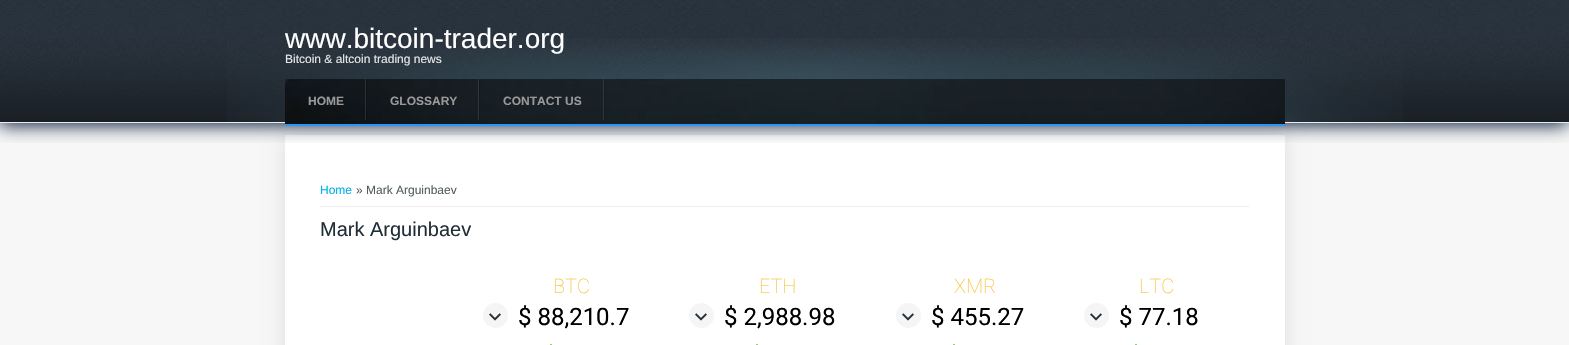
#include "include/core/SkBlurTypes.h"
#include "include/core/SkCanvas.h"
#include "include/core/SkData.h"
#include "include/core/SkFont.h"
#include "include/core/SkFontMgr.h"
#include "include/core/SkImage.h"
#include "include/core/SkMaskFilter.h"
#include "include/core/SkPaint.h"
#include "include/core/SkPathBuilder.h"
#include "include/core/SkTextBlob.h"
#include "include/effects/SkDashPathEffect.h"
#include "include/effects/SkGradientShader.h"
#include "include/utils/SkParsePath.h"

extern sk_sp<SkFontMgr> fontMgr;

void draw(SkCanvas* canvas) {
    SkPaint p;
    p.setAntiAlias(true);
    auto font = [&](const char* family, int weight, float size, bool italic = false) {
        SkFontStyle style(weight, SkFontStyle::kNormal_Width,
            italic ? SkFontStyle::kItalic_Slant : SkFontStyle::kUpright_Slant);
        SkFont result(fontMgr->matchFamilyStyle(family, style), size);
        result.setSubpixel(true);
        return result;
    };
    auto drawPhoto = [&](const char* path, float l, float t, float r, float b) {
        auto image = SkImages::DeferredFromEncodedData(SkData::MakeFromFileName(path));
        canvas->drawImageRect(image, SkRect::MakeLTRB(l, t, r, b), SkSamplingOptions());
    };
    canvas->clear(0xFFF7F7F7);
    drawPhoto("media/1.png", 0, 0, 1569, 122);
    p.setColor(0xFFDDDDDD);
    p.setMaskFilter(SkMaskFilter::MakeBlur(kNormal_SkBlurStyle, 9));
    canvas->drawRect(SkRect::MakeLTRB(285, 137, 1285, 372), p);
    p.setMaskFilter(nullptr);
    p.setColor(0xFFFFFFFF);
    canvas->drawRect(SkRect::MakeLTRB(285, 135, 1285, 345), p);
    canvas->save();
    canvas->clipRect(SkRect::MakeLTRB(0, 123, 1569, 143));
    p.setColor(0xFF021736);
    p.setMaskFilter(SkMaskFilter::MakeBlur(kNormal_SkBlurStyle, 9));
    canvas->drawRect(SkRect::MakeLTRB(-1, 2, 1568, 125), p);
    p.setMaskFilter(nullptr);
    canvas->restore();
    drawPhoto("media/2.png", 227, 38, 1403, 122);
    p.setColor(0xFFEBEBEB);
    canvas->drawRect(SkRect::MakeLTRB(0, 122, 1569, 123), p);
    auto font1 = font("Liberation Sans", 400, 28);
    p.setColor(0xFFFFFFFF);
    canvas->drawString("www.bitcoin-trader.org", 285, 48, font1, p);
    auto font2 = font("Liberation Sans", 400, 12);
    p.setColor(0xFFE7E7E7);
    canvas->drawString("Bitcoin & altcoin trading news", 285, 63, font2, p);
    drawPhoto("media/3.png", 285, 79, 1285, 124);
    p.setColor(0xFF2B96FA);
    canvas->drawRect(SkRect::MakeLTRB(285, 124, 1285, 126), p);
    drawPhoto("media/4.png", 365, 79, 367, 120);
    auto font3 = font("Liberation Sans", 700, 12);
    p.setColor(0xFF999999);
    canvas->drawString("HOME", 308, 105, font3, p);
    drawPhoto("media/5.png", 478, 79, 480, 120);
    canvas->drawString("GLOSSARY", 390, 105, font3, p);
    drawPhoto("media/6.png", 603, 79, 605, 120);
    canvas->drawString("CONTACT US", 503, 105, font3, p);
    p.setColor(0xFFEEEEEE);
    canvas->drawRect(SkRect::MakeLTRB(320, 206, 1249, 207), p);
    p.setColor(0xFF00B1EC);
    canvas->drawString("Home", 320, 194, font2, p);
    p.setColor(0xFF515F5C);
    canvas->drawString("» Mark Arguinbaev", 356, 194, font2, p);
    auto font4 = font("Liberation Sans", 400, 20);
    p.setColor(0xFF222E36);
    canvas->drawString("Mark Arguinbaev", 320, 236, font4, p);
    p.setColor(0xFFF5F5F5);
    canvas->drawCircle(495.5f, 315.5f, 12.5f, p);
    drawPhoto("media/7.png", 489, 313, 501, 321);
    auto font5 = font("Roboto", 100, 20);
    p.setColor(0xFFFABF2C);
    canvas->drawString("BTC", 553, 293, font5, p);
    auto font6 = font("Roboto", 400, 24);
    p.setColor(0xFF000000);
    canvas->drawString("$ 88,210.7", 518, 325, font6, p);
    p.setColor(0xFF3D9400);
    canvas->drawPath(SkPathBuilder().moveTo(551, 344).lineTo(543, 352).lineTo(559, 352).close().detach(), p);
    p.setColor(0xFFF5F5F5);
    canvas->drawCircle(701.5f, 315.5f, 12.5f, p);
    drawPhoto("media/7.png", 695, 313, 707, 321);
    p.setColor(0xFFFABF2C);
    canvas->drawString("ETH", 759, 293, font5, p);
    p.setColor(0xFF000000);
    canvas->drawString("$ 2,988.98", 724, 325, font6, p);
    p.setColor(0xFF3D9400);
    canvas->drawPath(SkPathBuilder().moveTo(757, 344).lineTo(749, 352).lineTo(765, 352).close().detach(), p);
    p.setColor(0xFFF5F5F5);
    canvas->drawCircle(908.5f, 315.5f, 12.5f, p);
    drawPhoto("media/7.png", 902, 313, 914, 321);
    p.setColor(0xFFFABF2C);
    canvas->drawString("XMR", 954, 293, font5, p);
    p.setColor(0xFF000000);
    canvas->drawString("$ 455.27", 931, 325, font6, p);
    p.setColor(0xFF3D9400);
    canvas->drawPath(SkPathBuilder().moveTo(954, 344).lineTo(946, 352).lineTo(962, 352).close().detach(), p);
    p.setColor(0xFFF5F5F5);
    canvas->drawCircle(1096.5f, 315.5f, 12.5f, p);
    drawPhoto("media/7.png", 1090, 313, 1102, 321);
    p.setColor(0xFFFABF2C);
    canvas->drawString("LTC", 1139, 293, font5, p);
    p.setColor(0xFF000000);
    canvas->drawString("$ 77.18", 1119, 325, font6, p);
    p.setColor(0xFF3D9400);
    canvas->drawPath(SkPathBuilder().moveTo(1136, 344).lineTo(1128, 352).lineTo(1144, 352).close().detach(), p);
}
